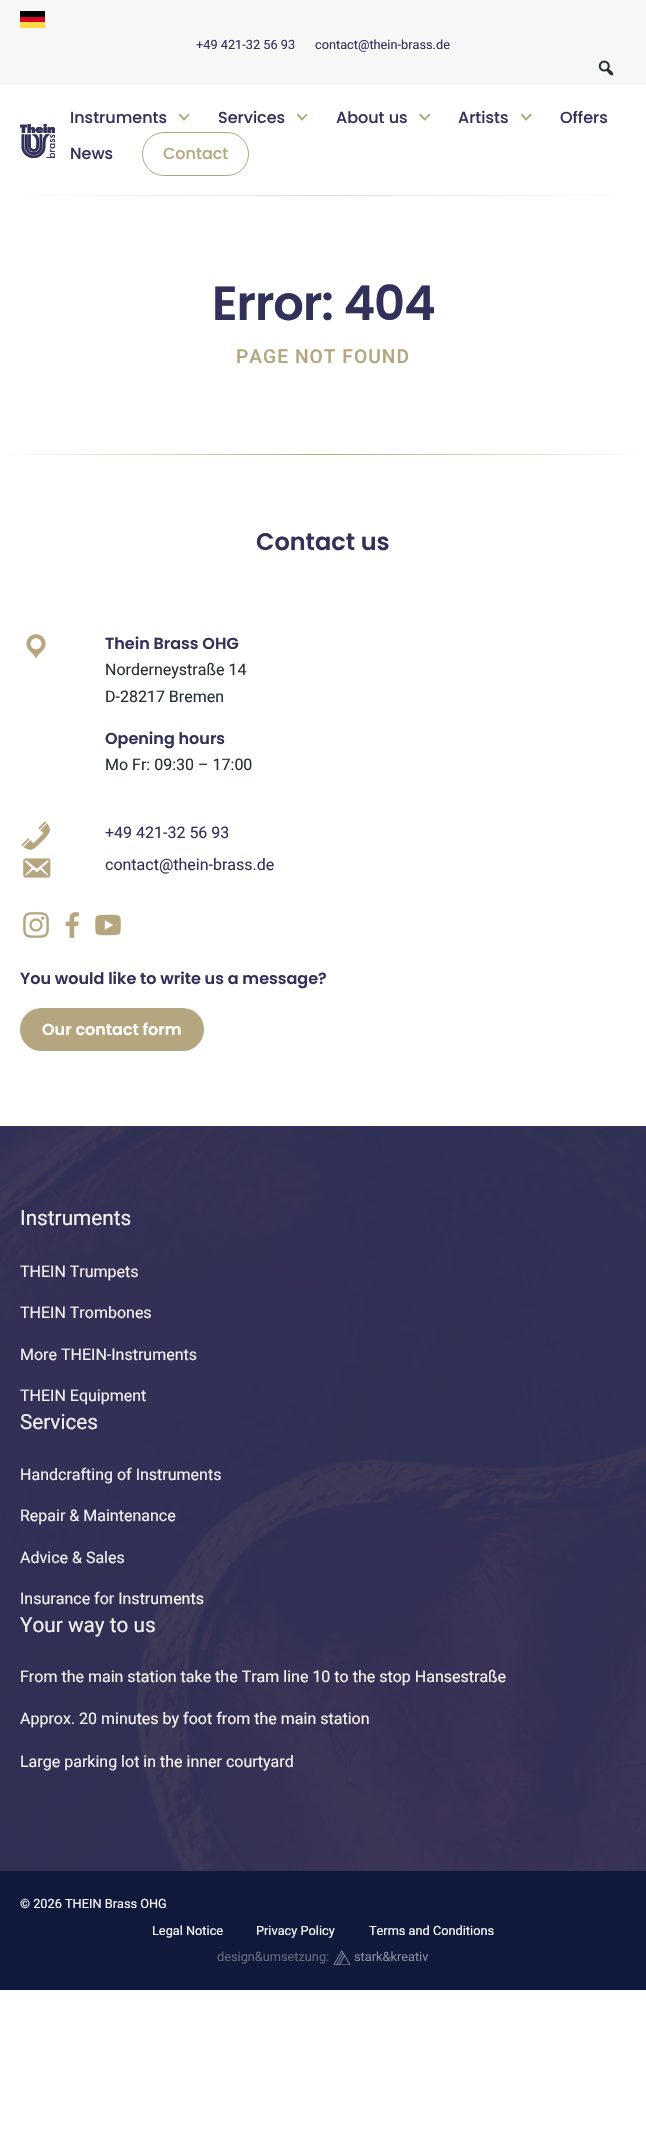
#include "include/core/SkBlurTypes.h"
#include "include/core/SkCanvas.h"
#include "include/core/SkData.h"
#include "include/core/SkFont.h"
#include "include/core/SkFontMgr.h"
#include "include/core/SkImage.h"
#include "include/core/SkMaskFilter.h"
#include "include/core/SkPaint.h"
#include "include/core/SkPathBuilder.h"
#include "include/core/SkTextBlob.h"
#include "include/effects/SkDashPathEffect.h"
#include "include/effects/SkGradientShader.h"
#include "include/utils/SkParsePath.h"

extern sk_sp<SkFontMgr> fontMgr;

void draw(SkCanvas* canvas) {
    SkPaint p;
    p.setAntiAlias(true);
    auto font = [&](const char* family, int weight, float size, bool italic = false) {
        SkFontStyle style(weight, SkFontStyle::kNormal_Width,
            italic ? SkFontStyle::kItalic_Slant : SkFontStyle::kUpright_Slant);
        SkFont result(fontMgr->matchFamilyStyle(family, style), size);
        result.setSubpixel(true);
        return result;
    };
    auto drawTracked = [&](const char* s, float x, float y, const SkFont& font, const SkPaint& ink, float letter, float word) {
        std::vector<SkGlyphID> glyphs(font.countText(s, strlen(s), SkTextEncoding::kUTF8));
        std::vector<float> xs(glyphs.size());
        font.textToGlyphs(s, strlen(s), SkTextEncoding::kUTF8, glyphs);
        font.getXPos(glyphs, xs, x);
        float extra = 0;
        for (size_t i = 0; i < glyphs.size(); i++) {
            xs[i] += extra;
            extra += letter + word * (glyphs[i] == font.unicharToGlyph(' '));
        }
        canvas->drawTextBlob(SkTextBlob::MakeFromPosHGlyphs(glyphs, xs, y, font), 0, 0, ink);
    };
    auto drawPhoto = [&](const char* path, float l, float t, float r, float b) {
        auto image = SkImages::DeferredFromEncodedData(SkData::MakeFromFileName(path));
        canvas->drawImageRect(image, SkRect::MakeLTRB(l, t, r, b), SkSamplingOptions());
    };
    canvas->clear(0xFFFFFFFF);
    p.setColor(0xFFF7F7F7);
    canvas->drawRect(SkRect::MakeLTRB(0, 0, 646, 85), p);
    drawPhoto("media/1.png", 20, 11, 45, 28);
    auto font1 = font("Heebo", 400, 12.75f);
    p.setColor(0xFF313159);
    canvas->drawString("+49 421-32 56 93", 196, 49, font1, p);
    canvas->drawString("contact@thein-brass.de", 315, 49, font1, p);
    drawPhoto("media/2.png", 598, 60, 614, 76);
    drawPhoto("media/3.png", 20, 124, 55, 158);
    auto font2 = font("Poppins", 500, 16);
    canvas->drawString("Instruments", 70, 123, font2, p);
    p.setColor(0xFFB6A67F);
    canvas->drawPath(SkPathBuilder().moveTo(188.5f, 113.5f).lineTo(189.5f, 115).lineTo(184, 120.5f).lineTo(182.5f, 119.5f).close().detach(), p);
    canvas->drawPath(SkPathBuilder().moveTo(180, 113.5f).lineTo(185.5f, 119.5f).lineTo(184, 120.5f).lineTo(178.5f, 115).close().detach(), p);
    p.setColor(0xFF313159);
    canvas->drawString("Services", 218, 123, font2, p);
    p.setColor(0xFFB6A67F);
    canvas->drawPath(SkPathBuilder().moveTo(306.5f, 113.5f).lineTo(307.5f, 115).lineTo(302, 120.5f).lineTo(300.5f, 119.5f).close().detach(), p);
    canvas->drawPath(SkPathBuilder().moveTo(298, 113.5f).lineTo(303.5f, 119.5f).lineTo(302, 120.5f).lineTo(296.5f, 115).close().detach(), p);
    p.setColor(0xFF313159);
    canvas->drawString("About us", 336, 123, font2, p);
    p.setColor(0xFFB6A67F);
    canvas->drawPath(SkPathBuilder().moveTo(429, 113.5f).lineTo(430.5f, 115).lineTo(424.5f, 120.5f).lineTo(423.5f, 119.5f).close().detach(), p);
    canvas->drawPath(SkPathBuilder().moveTo(420.5f, 113.5f).lineTo(426, 119.5f).lineTo(424.5f, 120.5f).lineTo(419, 115).close().detach(), p);
    p.setColor(0xFF313159);
    canvas->drawString("Artists", 458, 123, font2, p);
    p.setColor(0xFFB6A67F);
    canvas->drawPath(SkPathBuilder().moveTo(530.5f, 113.5f).lineTo(532, 115).lineTo(526, 120.5f).lineTo(524.5f, 119.5f).close().detach(), p);
    canvas->drawPath(SkPathBuilder().moveTo(522, 113.5f).lineTo(527.5f, 119.5f).lineTo(526, 120.5f).lineTo(520.5f, 115).close().detach(), p);
    p.setColor(0xFF313159);
    canvas->drawString("Offers", 560, 123, font2, p);
    canvas->drawString("News", 70, 159, font2, p);
    p.setStyle(SkPaint::kStroke_Style);
    p.setStrokeWidth(1);
    p.setColor(0xFFB6A67F);
    canvas->drawRoundRect(SkRect::MakeLTRB(142.5f, 132.5f, 248.5f, 175.5f), 21.5f, 21.5f, p);
    p.setStyle(SkPaint::kFill_Style);
    canvas->drawString("Contact", 163, 159, font2, p);
    {
        const SkColor colors[] = {0xFFFFFFFF, 0xFFE0E0E0, 0xFFFFFFFF};
        const float stops[] = {0, 0.5f, 1};
        const SkPoint ends[] = {{0, 196}, {646, 195}};
        p.setShader(SkGradientShader::MakeLinear(ends, colors, stops, 3, SkTileMode::kClamp));
        p.setAlpha(255);
    }
    canvas->drawRect(SkRect::MakeLTRB(26, 195, 620, 196), p);
    auto font3 = font("Poppins", 600, 48);
    p.setShader(nullptr);
    p.setColor(0xFF313159);
    drawTracked("Error: 404", 212, 320, font3, p, -1, 0);
    auto font4 = font("Heebo", 500, 19.25f);
    p.setColor(0xFFB6A67F);
    drawTracked("PAGE NOT FOUND", 236, 363, font4, p, 1, 0);
    {
        const SkColor colors[] = {0xFFFFFFFF, 0xFFB6A67F, 0xFFFFFFFF};
        const float stops[] = {0, 0.5f, 1};
        const SkPoint ends[] = {{0, 455}, {646, 455}};
        p.setShader(SkGradientShader::MakeLinear(ends, colors, stops, 3, SkTileMode::kClamp));
        p.setAlpha(255);
    }
    canvas->drawRect(SkRect::MakeLTRB(0, 454, 646, 455), p);
    auto font5 = font("Poppins", 600, 24);
    p.setShader(nullptr);
    p.setColor(0xFF313159);
    canvas->drawString("Contact us", 256, 550, font5, p);
    drawPhoto("media/4.png", 26, 634, 46, 659);
    auto font6 = font("Poppins", 600, 16);
    canvas->drawString("Thein Brass OHG", 105, 649, font6, p);
    auto font7 = font("Heebo", 400, 16);
    p.setColor(0xFF253036);
    canvas->drawString("Norderneystraße 14", 105, 675, font7, p);
    canvas->drawString("D-28217 Bremen", 105, 702, font7, p);
    p.setColor(0xFF313159);
    canvas->drawString("Opening hours", 105, 744, font6, p);
    p.setColor(0xFF253036);
    canvas->drawString("Mo Fr: 09:30 – 17:00", 105, 770, font7, p);
    drawPhoto("media/5.png", 21, 821, 50, 850);
    p.setColor(0xFF313159);
    canvas->drawString("+49 421-32 56 93", 105, 838, font7, p);
    drawPhoto("media/6.png", 23, 858, 51, 878);
    canvas->drawString("contact@thein-brass.de", 105, 870, font7, p);
    drawPhoto("media/7.png", 23, 912, 49, 938);
    drawPhoto("media/8.png", 65, 912, 79, 938);
    drawPhoto("media/9.png", 95, 914, 121, 936);
    canvas->drawString("You would like to write us a message?", 20, 984, font6, p);
    p.setColor(0xFFB6A67F);
    canvas->drawRoundRect(SkRect::MakeLTRB(21, 1009, 203, 1050), 20.5f, 20.5f, p);
    p.setStyle(SkPaint::kStroke_Style);
    p.setStrokeWidth(2);
    canvas->drawRoundRect(SkRect::MakeLTRB(21, 1009, 203, 1050), 20.5f, 20.5f, p);
    p.setStyle(SkPaint::kFill_Style);
    p.setColor(0xFFFFFFFF);
    canvas->drawString("Our contact form", 42, 1035, font6, p);
    p.setColor(0xFF313159);
    canvas->drawRect(SkRect::MakeLTRB(0, 1126, 646, 1871), p);
    auto font8 = font("Heebo", 400, 20.75f);
    p.setColor(0xFFFFFFFF);
    canvas->drawString("Instruments", 20, 1225, font8, p);
    {
        const struct { const char* s; float x, y; } items[] = {
            {"THEIN Trumpets", 20, 1277},
            {"THEIN Trombones", 20, 1318},
            {"More THEIN-Instruments", 20, 1360},
            {"THEIN Equipment", 20, 1401},
        };
        for (auto [s, x, y] : items) {
            canvas->drawString(s, x, y, font7, p);
        }
    }
    canvas->drawString("Services", 20, 1429, font8, p);
    {
        const struct { const char* s; float x, y; } items[] = {
            {"Handcrafting of Instruments", 20, 1480},
            {"Repair & Maintenance", 20, 1521},
            {"Advice & Sales", 20, 1563},
            {"Insurance for Instruments", 20, 1604},
        };
        for (auto [s, x, y] : items) {
            canvas->drawString(s, x, y, font7, p);
        }
    }
    canvas->drawString("Your way to us", 20, 1632, font8, p);
    {
        const struct { const char* s; float x, y; } items[] = {
            {"From the main station take the Tram line 10 to the stop Hansestraße", 20, 1682},
            {"Approx. 20 minutes by foot from the main station", 20, 1724},
            {"Large parking lot in the inner courtyard", 20, 1767},
        };
        for (auto [s, x, y] : items) {
            canvas->drawString(s, x, y, font7, p);
        }
    }
    drawPhoto("media/10.png", 0, 1126, 646, 1871);
    p.setColor(0xFF0F193C);
    canvas->drawRect(SkRect::MakeLTRB(0, 1871, 646, 1990), p);
    p.setColor(0xFFFFFFFF);
    {
        const struct { const char* s; float x, y; } items[] = {
            {"© 2026 THEIN Brass OHG", 20, 1908},
            {"Legal Notice", 152, 1935},
            {"Privacy Policy", 256, 1935},
            {"Terms and Conditions", 369, 1935},
        };
        for (auto [s, x, y] : items) {
            canvas->drawString(s, x, y, font1, p);
        }
    }
    p.setColor(0xFF656A7C);
    canvas->drawString("design&umsetzung:", 217, 1961, font1, p);
    drawPhoto("media/11.png", 333, 1950, 351, 1965);
    p.setColor(0xFF878C9E);
    canvas->drawString("stark&kreativ", 354, 1961, font1, p);
}
